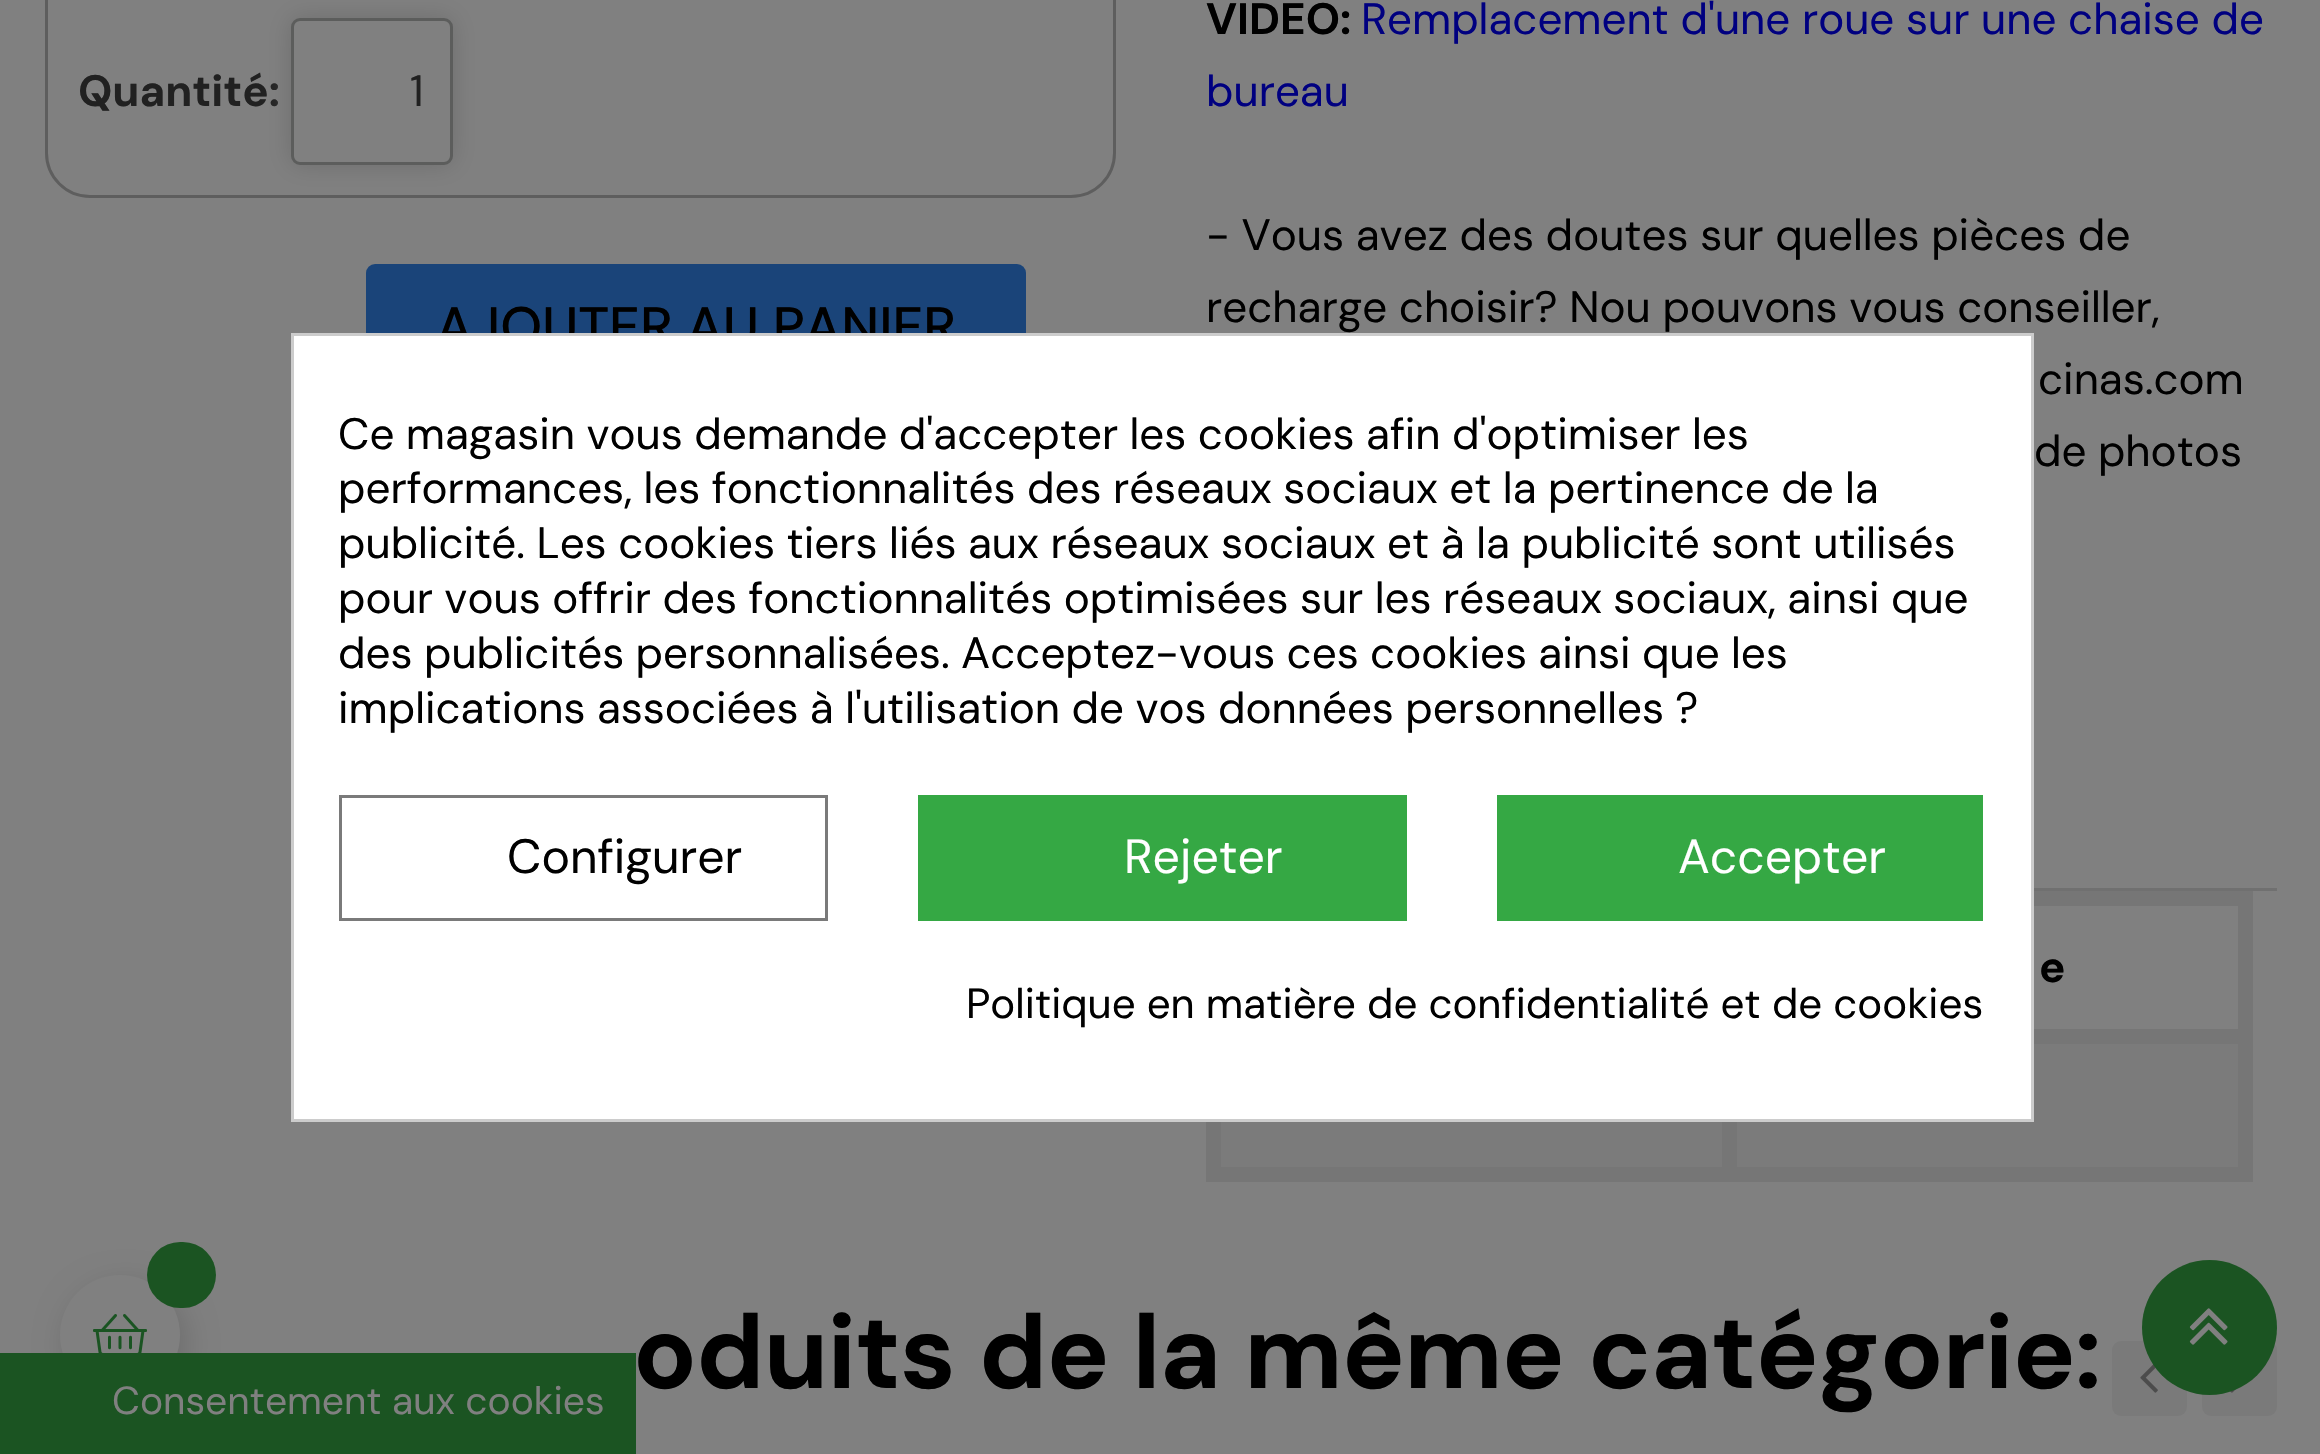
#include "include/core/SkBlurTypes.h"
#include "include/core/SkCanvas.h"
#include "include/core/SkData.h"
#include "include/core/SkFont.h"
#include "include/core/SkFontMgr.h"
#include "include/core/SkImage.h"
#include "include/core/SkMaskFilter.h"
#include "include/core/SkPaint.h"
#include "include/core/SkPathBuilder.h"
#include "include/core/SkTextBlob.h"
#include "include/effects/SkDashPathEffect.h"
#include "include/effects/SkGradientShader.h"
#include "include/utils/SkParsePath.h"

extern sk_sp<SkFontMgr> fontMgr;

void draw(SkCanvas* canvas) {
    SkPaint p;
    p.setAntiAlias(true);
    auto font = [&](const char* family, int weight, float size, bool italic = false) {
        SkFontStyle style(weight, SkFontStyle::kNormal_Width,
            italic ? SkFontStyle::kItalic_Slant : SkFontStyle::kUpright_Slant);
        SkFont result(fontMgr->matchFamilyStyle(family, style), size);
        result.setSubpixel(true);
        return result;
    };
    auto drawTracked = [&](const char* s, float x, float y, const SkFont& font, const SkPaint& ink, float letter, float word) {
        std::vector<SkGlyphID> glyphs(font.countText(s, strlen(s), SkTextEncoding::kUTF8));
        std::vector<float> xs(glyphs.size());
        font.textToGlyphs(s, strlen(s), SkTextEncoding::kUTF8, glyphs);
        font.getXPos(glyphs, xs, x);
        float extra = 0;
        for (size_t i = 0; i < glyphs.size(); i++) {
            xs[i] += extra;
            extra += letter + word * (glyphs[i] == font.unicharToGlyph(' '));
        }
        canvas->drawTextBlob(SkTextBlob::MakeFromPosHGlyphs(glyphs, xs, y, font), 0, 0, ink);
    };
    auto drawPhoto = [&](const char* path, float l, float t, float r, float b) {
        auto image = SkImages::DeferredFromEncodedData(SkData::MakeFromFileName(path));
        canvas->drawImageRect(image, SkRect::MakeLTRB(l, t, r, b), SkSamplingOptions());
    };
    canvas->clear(0xFF808080);
    p.setStyle(SkPaint::kStroke_Style);
    p.setStrokeWidth(3);
    p.setColor(0xFF5E5E5E);
    canvas->drawRoundRect(SkRect::MakeLTRB(46.5f, -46.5f, 1114.5f, 196.5f), 43.5f, 43.5f, p);
    auto font1 = font("DM Sans", 700, 43.9f);
    p.setStyle(SkPaint::kFill_Style);
    p.setColor(0xFF212121);
    canvas->drawString("Quantité:", 78, 106, font1, p);
    p.setColor(0xFF6D6D6D);
    p.setMaskFilter(SkMaskFilter::MakeBlur(kNormal_SkBlurStyle, 12));
    canvas->drawRoundRect(SkRect::MakeLTRB(291, 18, 453, 165), 9, 9, p);
    p.setMaskFilter(nullptr);
    p.setColor(0xFF808080);
    canvas->drawRoundRect(SkRect::MakeLTRB(292.5f, 19.5f, 451.5f, 163.5f), 7.5f, 7.5f, p);
    p.setStyle(SkPaint::kStroke_Style);
    p.setColor(0xFF5C5D5C);
    canvas->drawRoundRect(SkRect::MakeLTRB(292.5f, 19.5f, 451.5f, 163.5f), 7.5f, 7.5f, p);
    auto font2 = font("DM Sans", 400, 43.9f);
    p.setStyle(SkPaint::kFill_Style);
    p.setColor(0xFF212121);
    canvas->drawString("1", 410, 106, font2, p);
    p.setColor(0xFF1A4479);
    canvas->drawRoundRect(SkRect::MakeLTRB(366, 264, 1026, 393), 9, 9, p);
    auto font3 = font("DM Sans", 500, 54);
    p.setColor(0xFF000000);
    canvas->drawString("AJOUTER AU PANIER", 436, 345, font3, p);
    canvas->drawString("VIDEO:", 1206, 34, font1, p);
    p.setColor(0xFF000080);
    canvas->drawString("Remplacement d'une roue sur une chaise de", 1361, 34, font2, p);
    canvas->drawString("bureau", 1206, 106, font2, p);
    p.setColor(0xFF000000);
    {
        const struct { const char* s; float x, y; } items[] = {
            {"- Vous avez des doutes sur quelles pièces de", 1206, 250},
            {"recharge choisir? Nou pouvons vous conseiller,", 1206, 322},
            {"cinas.com", 2038, 394},
        };
        for (auto [s, x, y] : items) {
            canvas->drawString(s, x, y, font2, p);
        }
    }
    drawTracked("de photos", 2034, 466, font2, p, 0, -0.25f);
    {
        const struct { float l, t, r, b; SkColor color; } items[] = {
            {2034, 888, 2277, 891, 0xFF707070},
            {1221, 1044, 2238, 1167, 0xFF7B7B7B},
            {1206, 1122, 1221, 1182, 0xFF767676},
            {2034, 1029, 2238, 1044, 0xFF767676},
            {2238, 891, 2253, 1167, 0xFF767676},
            {1221, 1167, 2253, 1182, 0xFF767676},
            {1722, 1122, 1737, 1167, 0xFF767676},
            {2034, 891, 2238, 906, 0xFF767676},
        };
        for (auto [l, t, r, b, color] : items) {
            p.setColor(color);
            canvas->drawRect(SkRect::MakeLTRB(l, t, r, b), p);
        }
    }
    p.setColor(0xFF000000);
    canvas->drawString("e", 2039, 982, font1, p);
    auto font4 = font("DM Sans", 700, 104.6f);
    drawTracked("oduits de la même catégorie:", 633, 1388, font4, p, -0.75f, 0);
    p.setColor(0xFF7A7A7A);
    canvas->drawRoundRect(SkRect::MakeLTRB(2112, 1341, 2187, 1416), 9, 9, p);
    drawPhoto("media/1.png", 2140, 1364, 2158, 1393);
    canvas->drawRoundRect(SkRect::MakeLTRB(2202, 1341, 2277, 1416), 9, 9, p);
    drawPhoto("media/2.png", 2230, 1389, 2236, 1393);
    p.setColor(0xFF1B5422);
    canvas->drawCircle(2209.5f, 1327.5f, 67.5f, p);
    drawPhoto("media/3.png", 2189, 1308, 2228, 1345);
    p.setColor(0xFFFFFFFF);
    canvas->drawRect(SkRect::MakeLTRB(292.5f, 334.5f, 2032.5f, 1120.5f), p);
    p.setStyle(SkPaint::kStroke_Style);
    p.setColor(0xFFCCCCCC);
    canvas->drawRect(SkRect::MakeLTRB(292.5f, 334.5f, 2032.5f, 1120.5f), p);
    p.setStyle(SkPaint::kFill_Style);
    p.setColor(0xFF000000);
    drawTracked("Ce magasin vous demande d'accepter les cookies afin d'optimiser les", 338, 449, font2, p, 0, -0.25f);
    drawTracked("performances, les fonctionnalités des réseaux sociaux et la pertinence de la", 338, 503, font2, p, 0, -0.25f);
    drawTracked("publicité. Les cookies tiers liés aux réseaux sociaux et à la publicité sont utilisés", 338, 558, font2, p, 0, -0.1f);
    {
        const struct { const char* s; float x, y; } items[] = {
            {"pour vous offrir des fonctionnalités optimisées sur les réseaux sociaux, ainsi que", 338, 613},
            {"des publicités personnalisées. Acceptez-vous ces cookies ainsi que les", 338, 668},
            {"implications associées à l'utilisation de vos données personnelles ?", 338, 723},
        };
        for (auto [s, x, y] : items) {
            drawTracked(s, x, y, font2, p, 0, -0.25f);
        }
    }
    p.setStyle(SkPaint::kStroke_Style);
    p.setColor(0xFF7A7A7A);
    canvas->drawRect(SkRect::MakeLTRB(340.5f, 796.5f, 826.5f, 919.5f), p);
    auto font5 = font("DM Sans", 400, 48);
    p.setStyle(SkPaint::kFill_Style);
    p.setColor(0xFF000000);
    canvas->drawString("Configurer", 507, 873, font5, p);
    p.setColor(0xFF35A844);
    canvas->drawRect(SkRect::MakeLTRB(918, 795, 1407, 921), p);
    p.setColor(0xFFFFFFFF);
    canvas->drawString("Rejeter", 1124, 873, font5, p);
    p.setColor(0xFF35A844);
    canvas->drawRect(SkRect::MakeLTRB(1497, 795, 1983, 921), p);
    p.setColor(0xFFFFFFFF);
    canvas->drawString("Accepter", 1678, 873, font5, p);
    auto font6 = font("DM Sans", 400, 42);
    p.setColor(0xFF000000);
    canvas->drawString("Politique en matière de confidentialité et de cookies", 966, 1018, font6, p);
    p.setColor(0x26000000);
    p.setMaskFilter(SkMaskFilter::MakeBlur(kNormal_SkBlurStyle, 15));
    canvas->drawRoundRect(SkRect::MakeLTRB(66, 1284, 186, 1404), 60, 60, p);
    p.setMaskFilter(nullptr);
    p.setColor(0xFF808080);
    canvas->drawCircle(120, 1335, 60, p);
    drawPhoto("media/4.png", 93, 1314, 147, 1353);
    p.setColor(0xFF1B5422);
    canvas->drawRoundRect(SkRect::MakeLTRB(147, 1242, 216, 1308), 33, 33, p);
    canvas->drawRect(SkRect::MakeLTRB(0, 1353, 636, 1454), p);
    auto font7 = font("DM Sans", 400, 39);
    p.setColor(0xFF808080);
    canvas->drawString("Consentement aux cookies", 112, 1414, font7, p);
}
